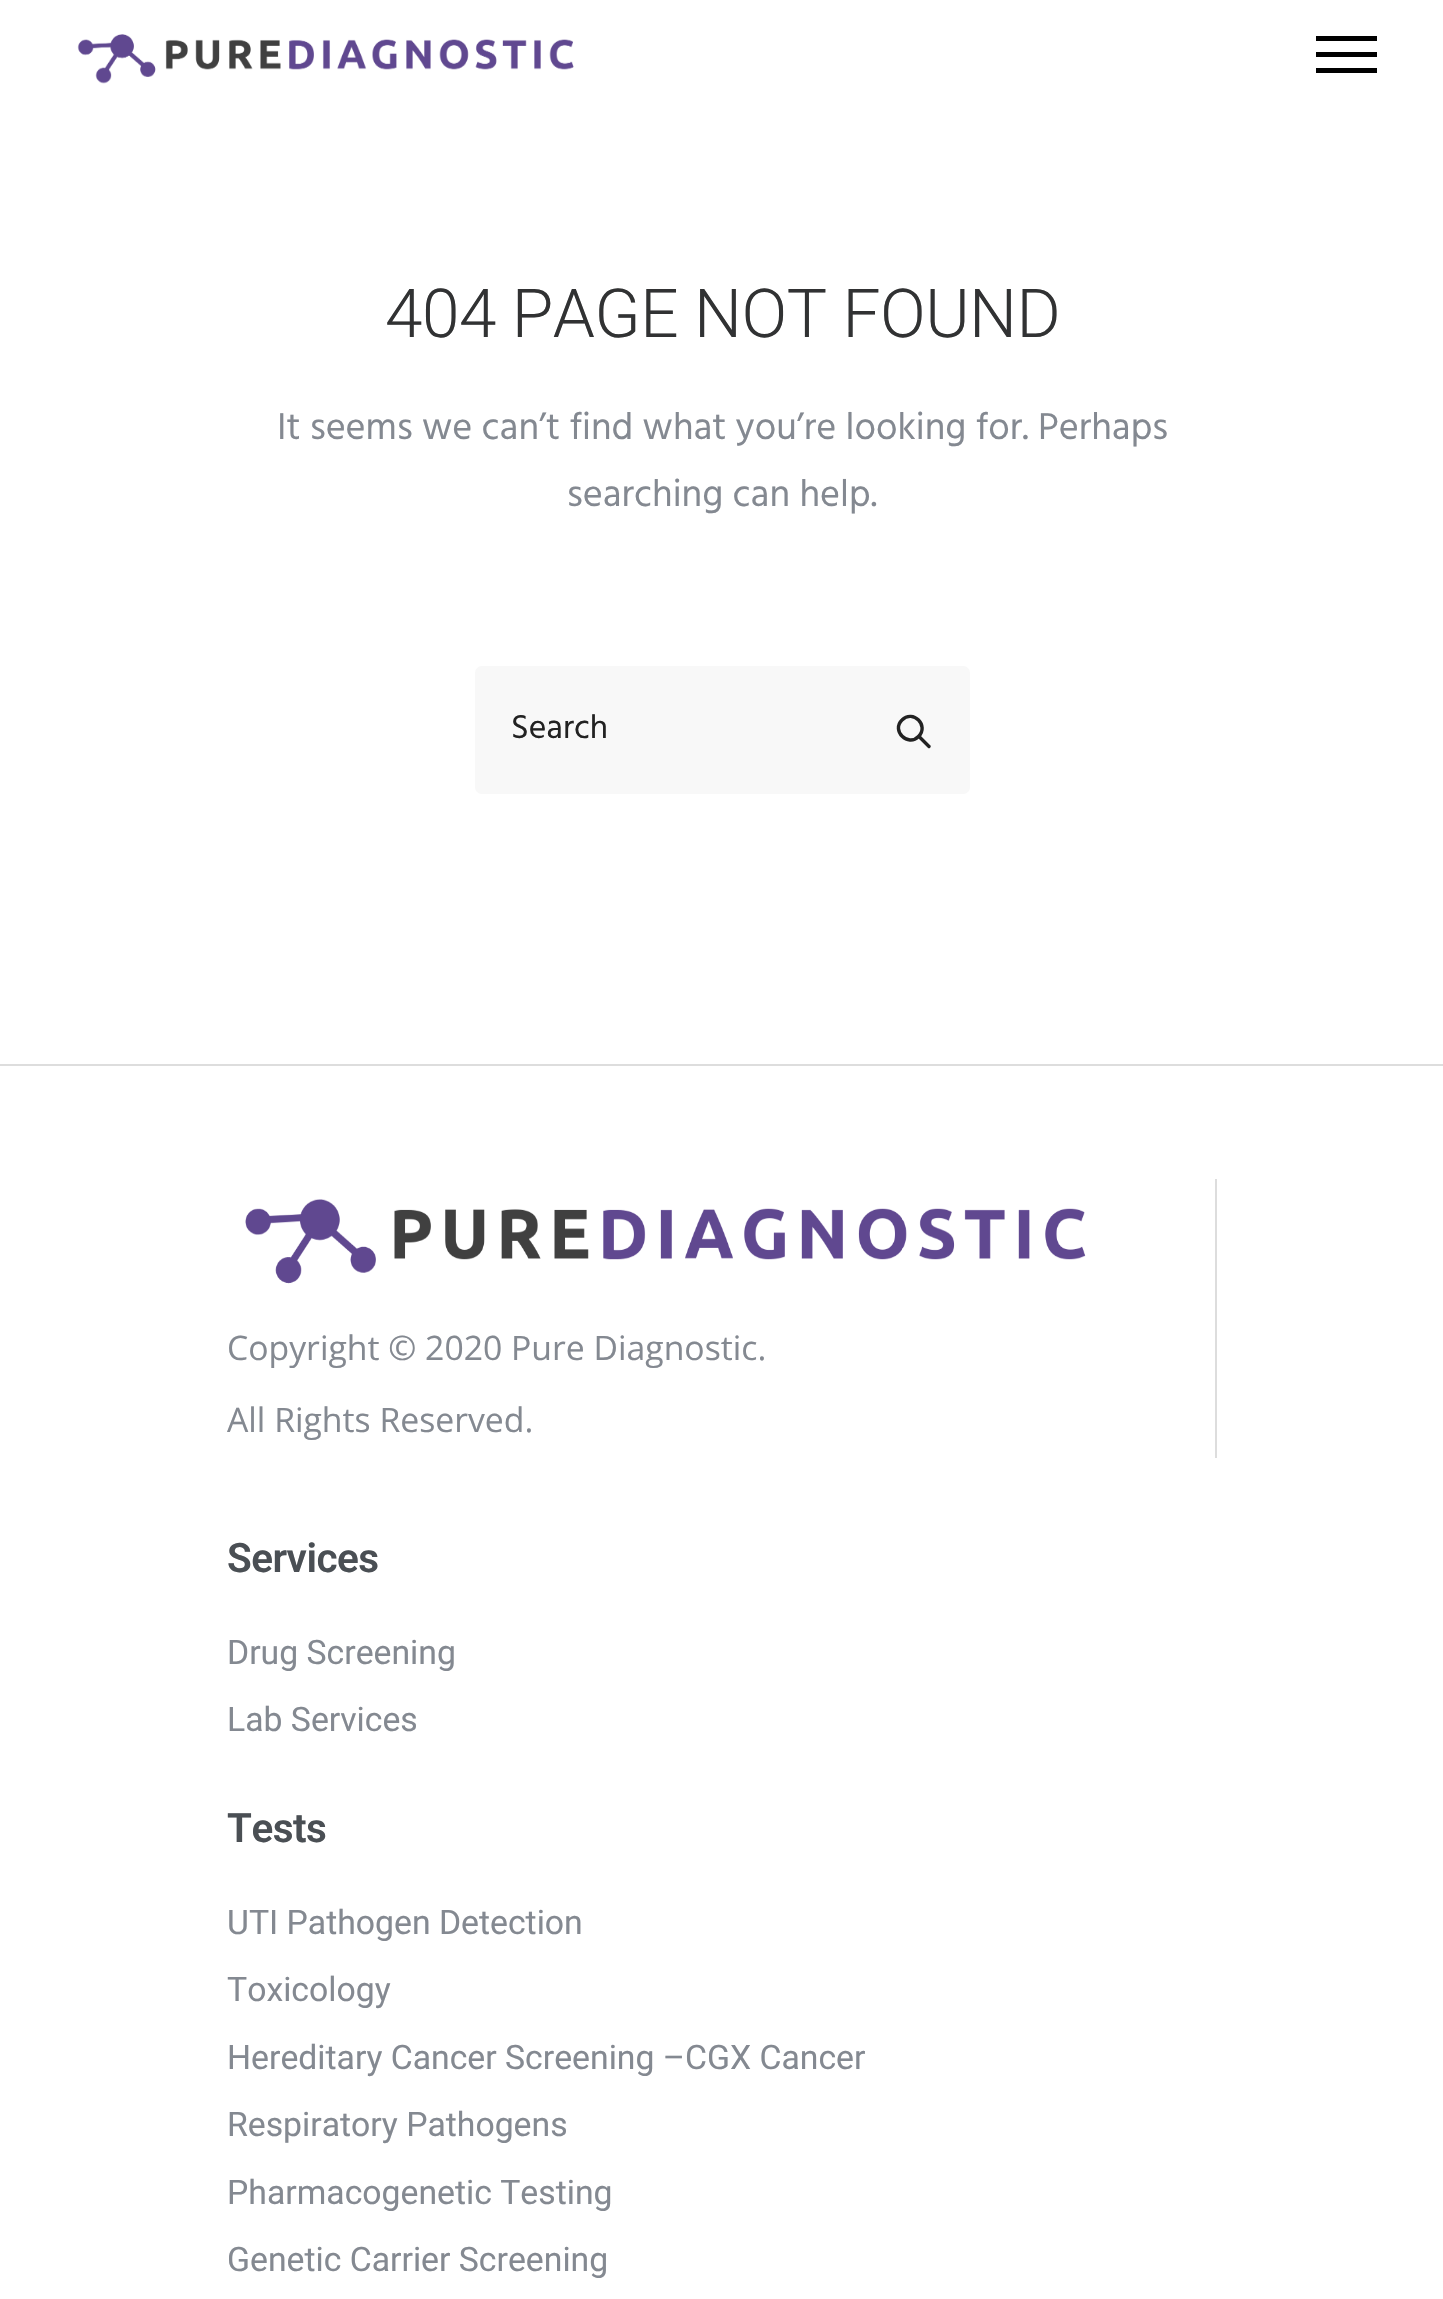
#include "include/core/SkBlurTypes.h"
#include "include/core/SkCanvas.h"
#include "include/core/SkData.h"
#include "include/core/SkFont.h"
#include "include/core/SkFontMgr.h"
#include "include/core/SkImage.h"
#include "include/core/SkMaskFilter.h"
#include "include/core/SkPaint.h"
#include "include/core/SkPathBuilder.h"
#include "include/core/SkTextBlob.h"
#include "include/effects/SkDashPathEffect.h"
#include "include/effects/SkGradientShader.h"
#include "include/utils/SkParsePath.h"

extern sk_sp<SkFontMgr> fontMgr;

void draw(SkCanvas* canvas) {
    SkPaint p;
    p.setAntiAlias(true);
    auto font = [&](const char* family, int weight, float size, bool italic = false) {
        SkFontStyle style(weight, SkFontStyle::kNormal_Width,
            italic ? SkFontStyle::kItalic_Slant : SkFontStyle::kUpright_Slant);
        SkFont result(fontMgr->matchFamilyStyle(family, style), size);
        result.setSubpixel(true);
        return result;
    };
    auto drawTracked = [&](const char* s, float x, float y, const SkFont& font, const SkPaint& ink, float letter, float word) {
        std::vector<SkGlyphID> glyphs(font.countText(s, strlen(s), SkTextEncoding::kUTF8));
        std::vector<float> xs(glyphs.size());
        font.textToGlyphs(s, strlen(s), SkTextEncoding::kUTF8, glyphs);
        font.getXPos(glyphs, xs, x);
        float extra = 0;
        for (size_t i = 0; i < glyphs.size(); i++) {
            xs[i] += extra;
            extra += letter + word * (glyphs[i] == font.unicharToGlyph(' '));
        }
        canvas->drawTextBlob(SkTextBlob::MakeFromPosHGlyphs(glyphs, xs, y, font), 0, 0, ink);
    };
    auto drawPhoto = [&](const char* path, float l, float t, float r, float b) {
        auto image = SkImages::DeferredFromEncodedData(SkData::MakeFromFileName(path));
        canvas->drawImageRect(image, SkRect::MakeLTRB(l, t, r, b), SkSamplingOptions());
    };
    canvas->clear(0xFFFFFFFF);
    drawPhoto("media/1.png", 77, 34, 574, 84);
    {
        const struct { float l, t, r, b; SkColor color; } items[] = {
            {1316, 36, 1377, 41, 0xFF000000},
            {1316, 52, 1377, 57, 0xFF000000},
            {1316, 68, 1377, 73, 0xFF000000},
        };
        for (auto [l, t, r, b, color] : items) {
            p.setColor(color);
            canvas->drawRect(SkRect::MakeLTRB(l, t, r, b), p);
        }
    }
    auto font1 = font("Roboto", 300, 67.5f);
    p.setColor(0xFF313233);
    drawTracked("404 PAGE NOT FOUND", 385, 337, font1, p, -0.5f, 0);
    auto font2 = font("Hind", 400, 38.25f);
    p.setColor(0xFF848991);
    canvas->drawString("It seems we can’t find what you’re looking for. Perhaps", 277, 439, font2, p);
    canvas->drawString("searching can help.", 567, 506, font2, p);
    p.setColor(0xFFF8F8F8);
    canvas->drawRoundRect(SkRect::MakeLTRB(475, 666, 970, 794), 7, 7, p);
    auto font3 = font("Hind", 400, 33.75f);
    p.setColor(0xFF222222);
    canvas->drawString("Search", 511, 738, font3, p);
    p.setStyle(SkPaint::kStroke_Style);
    p.setStrokeWidth(3.4f);
    canvas->drawPath(SkPathBuilder().moveTo(902, 720).cubicTo(913, 709, 929.5f, 725.5f, 918.5f, 736.5f).cubicTo(908, 747.5f, 891, 730.5f, 902, 720).close().detach(), p);
    p.setStrokeCap(SkPaint::kRound_Cap);
    canvas->drawPath(SkPathBuilder().moveTo(919, 736.5f).lineTo(929, 746.5f).detach(), p);
    p.setStyle(SkPaint::kFill_Style);
    p.setColor(0xFFDDDDDD);
    canvas->drawRect(SkRect::MakeLTRB(0, 1064, 1443, 1066), p);
    canvas->drawRect(SkRect::MakeLTRB(1215, 1179, 1217, 1458), p);
    drawPhoto("media/2.png", 245, 1199, 1086, 1284);
    auto font4 = font("Open Sans", 400, 33.75f);
    p.setColor(0xFF848991);
    canvas->drawString("Copyright © 2020 Pure Diagnostic.", 227, 1360, font4, p);
    canvas->drawString("All Rights Reserved.", 227, 1432, font4, p);
    auto font5 = font("Roboto", 600, 40.5f);
    p.setColor(0xFF4A4F54);
    drawTracked("Services", 227, 1572, font5, p, -0.5f, 0);
    auto font6 = font("Roboto", 400, 33.75f);
    p.setColor(0xFF848991);
    canvas->drawString("Drug Screening", 227, 1664, font6, p);
    canvas->drawString("Lab Services", 227, 1731, font6, p);
    p.setColor(0xFF4A4F54);
    drawTracked("Tests", 227, 1842, font5, p, -0.5f, 0);
    p.setColor(0xFF848991);
    {
        const struct { const char* s; float x, y; } items[] = {
            {"UTI Pathogen Detection", 227, 1934},
            {"Toxicology", 227, 2001},
            {"Hereditary Cancer Screening –CGX Cancer", 227, 2069},
            {"Respiratory Pathogens", 227, 2136},
            {"Pharmacogenetic Testing", 227, 2204},
            {"Genetic Carrier Screening", 227, 2271},
        };
        for (auto [s, x, y] : items) {
            canvas->drawString(s, x, y, font6, p);
        }
    }
}
